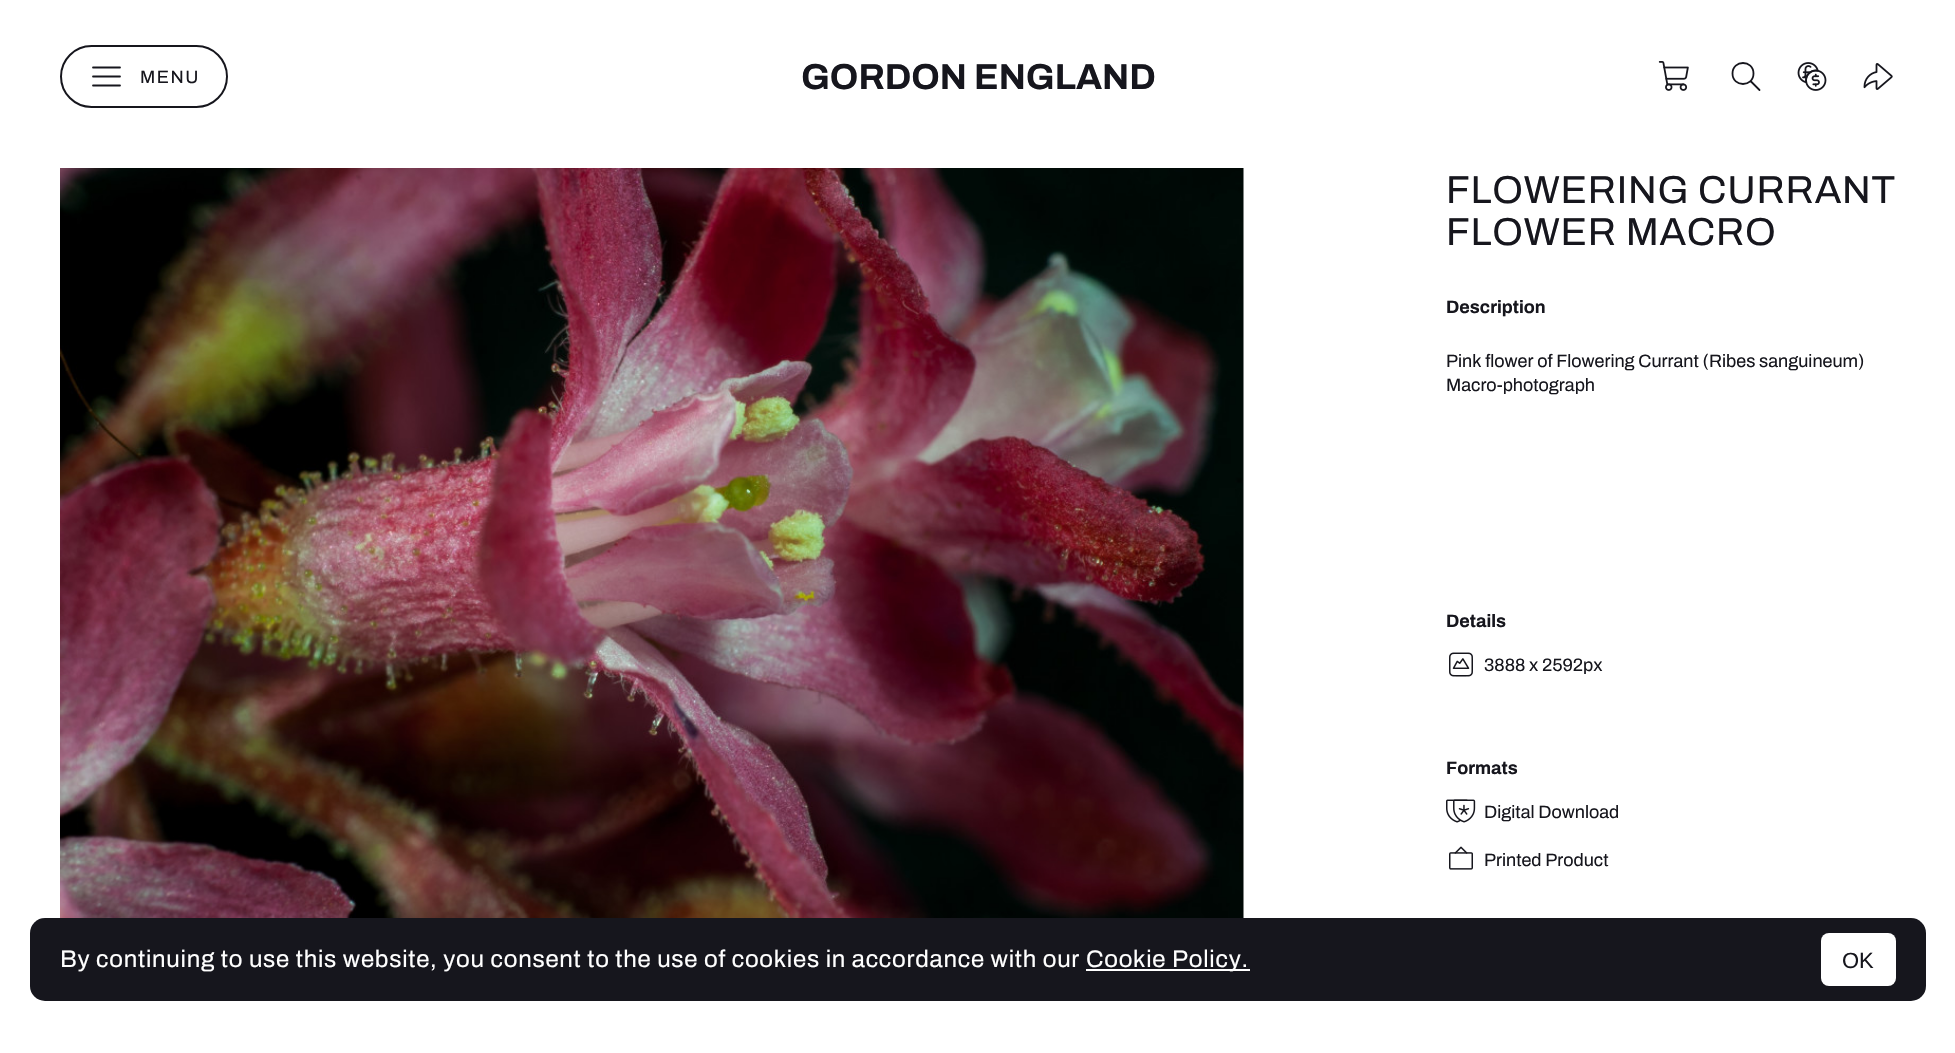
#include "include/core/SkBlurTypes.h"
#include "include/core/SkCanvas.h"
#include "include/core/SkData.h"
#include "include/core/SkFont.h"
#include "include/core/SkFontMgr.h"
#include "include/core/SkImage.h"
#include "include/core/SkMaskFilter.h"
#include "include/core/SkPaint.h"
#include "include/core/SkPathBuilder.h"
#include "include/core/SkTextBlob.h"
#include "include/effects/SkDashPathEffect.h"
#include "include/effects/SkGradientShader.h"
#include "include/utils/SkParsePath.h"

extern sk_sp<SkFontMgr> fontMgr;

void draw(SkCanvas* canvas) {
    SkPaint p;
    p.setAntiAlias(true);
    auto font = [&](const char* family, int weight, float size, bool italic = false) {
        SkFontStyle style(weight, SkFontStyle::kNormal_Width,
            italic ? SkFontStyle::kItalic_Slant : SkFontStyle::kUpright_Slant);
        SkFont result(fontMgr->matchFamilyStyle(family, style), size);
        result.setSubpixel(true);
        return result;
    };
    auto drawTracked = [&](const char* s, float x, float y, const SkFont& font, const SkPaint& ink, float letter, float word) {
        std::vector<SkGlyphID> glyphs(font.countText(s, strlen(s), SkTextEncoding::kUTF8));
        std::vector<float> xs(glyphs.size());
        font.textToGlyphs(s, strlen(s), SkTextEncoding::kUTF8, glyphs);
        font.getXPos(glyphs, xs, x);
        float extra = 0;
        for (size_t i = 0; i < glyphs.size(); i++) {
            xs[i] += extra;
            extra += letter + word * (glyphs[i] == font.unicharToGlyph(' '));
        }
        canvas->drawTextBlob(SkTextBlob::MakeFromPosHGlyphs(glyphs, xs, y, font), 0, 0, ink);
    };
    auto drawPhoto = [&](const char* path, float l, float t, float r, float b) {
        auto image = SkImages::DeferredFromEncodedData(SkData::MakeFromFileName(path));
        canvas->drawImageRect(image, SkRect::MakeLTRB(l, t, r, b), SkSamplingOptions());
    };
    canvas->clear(0xFFFFFFFF);
    p.setStyle(SkPaint::kStroke_Style);
    p.setStrokeWidth(2);
    p.setColor(0xFF16161D);
    canvas->drawRoundRect(SkRect::MakeLTRB(61, 46, 227, 107), 30.5f, 30.5f, p);
    p.setStrokeWidth(1.8f);
    p.setStrokeCap(SkPaint::kRound_Cap);
    p.setStrokeJoin(SkPaint::kRound_Join);
    canvas->drawPath(SkPathBuilder().moveTo(93, 76.5f).lineTo(120, 76.5f).moveTo(93, 67.5f).lineTo(120, 67.5f).moveTo(93, 85.5f).lineTo(120, 85.5f).detach(), p);
    auto font1 = font("Archivo", 400, 18);
    p.setStyle(SkPaint::kFill_Style);
    drawTracked("MENU", 140, 83, font1, p, 1.5f, 0);
    auto font2 = font("Archivo", 700, 36);
    canvas->drawString("GORDON ENGLAND", 801, 89, font2, p);
    drawPhoto("media/1.png", 1658, 61, 1689, 91);
    p.setStyle(SkPaint::kStroke_Style);
    canvas->drawPath(SkPathBuilder().moveTo(1759.5f, 90).lineTo(1750.5f, 81).moveTo(1753.5f, 73.5f).cubicTo(1753.5f, 87.5f, 1732.5f, 87.5f, 1732.5f, 73.5f).cubicTo(1732.5f, 59.5f, 1753.5f, 59.5f, 1753.5f, 73.5f).close().detach(), p);
    drawPhoto("media/2.png", 1797, 62, 1827, 91);
    drawPhoto("media/3.png", 1863, 63, 1893, 90);
    drawPhoto("media/4.png", 60, 168, 1244, 918);
    auto font3 = font("Archivo", 400, 39);
    p.setStyle(SkPaint::kFill_Style);
    drawTracked("FLOWERING CURRANT", 1446, 203, font3, p, 0.75f, 0);
    drawTracked("FLOWER MACRO", 1446, 245, font3, p, 0.75f, 0);
    auto font4 = font("Archivo", 700, 18);
    canvas->drawString("Description", 1446, 313, font4, p);
    canvas->drawString("Pink flower of Flowering Currant (Ribes sanguineum)", 1446, 367, font1, p);
    canvas->drawString("Macro-photograph", 1446, 391, font1, p);
    canvas->drawString("Details", 1446, 627, font4, p);
    drawPhoto("media/5.png", 1449, 652, 1473, 677);
    canvas->drawString("3888 x 2592px", 1484, 671, font1, p);
    canvas->drawString("Formats", 1446, 774, font4, p);
    drawPhoto("media/6.png", 1446, 799, 1476, 823);
    canvas->drawString("Digital Download", 1484, 818, font1, p);
    drawPhoto("media/7.png", 1449, 846, 1473, 870);
    canvas->drawString("Printed Product", 1484, 866, font1, p);
    canvas->drawRoundRect(SkRect::MakeLTRB(30, 918, 1926, 1001), 15, 15, p);
    auto font5 = font("Archivo", 400, 24);
    p.setColor(0xFFFFFFFF);
    drawTracked("By continuing to use this website, you consent to the use of cookies in accordance with our", 60, 967, font5, p, 0.75f, 0);
    canvas->drawRect(SkRect::MakeLTRB(1086, 969, 1250, 971), p);
    drawTracked("Cookie Policy.", 1086, 967, font5, p, 0.75f, 0);
    canvas->drawRoundRect(SkRect::MakeLTRB(1821, 933, 1896, 986), 8, 8, p);
    auto font6 = font("Liberation Sans", 400, 22);
    p.setColor(0xFF16161D);
    canvas->drawString("OK", 1842, 968, font6, p);
}
